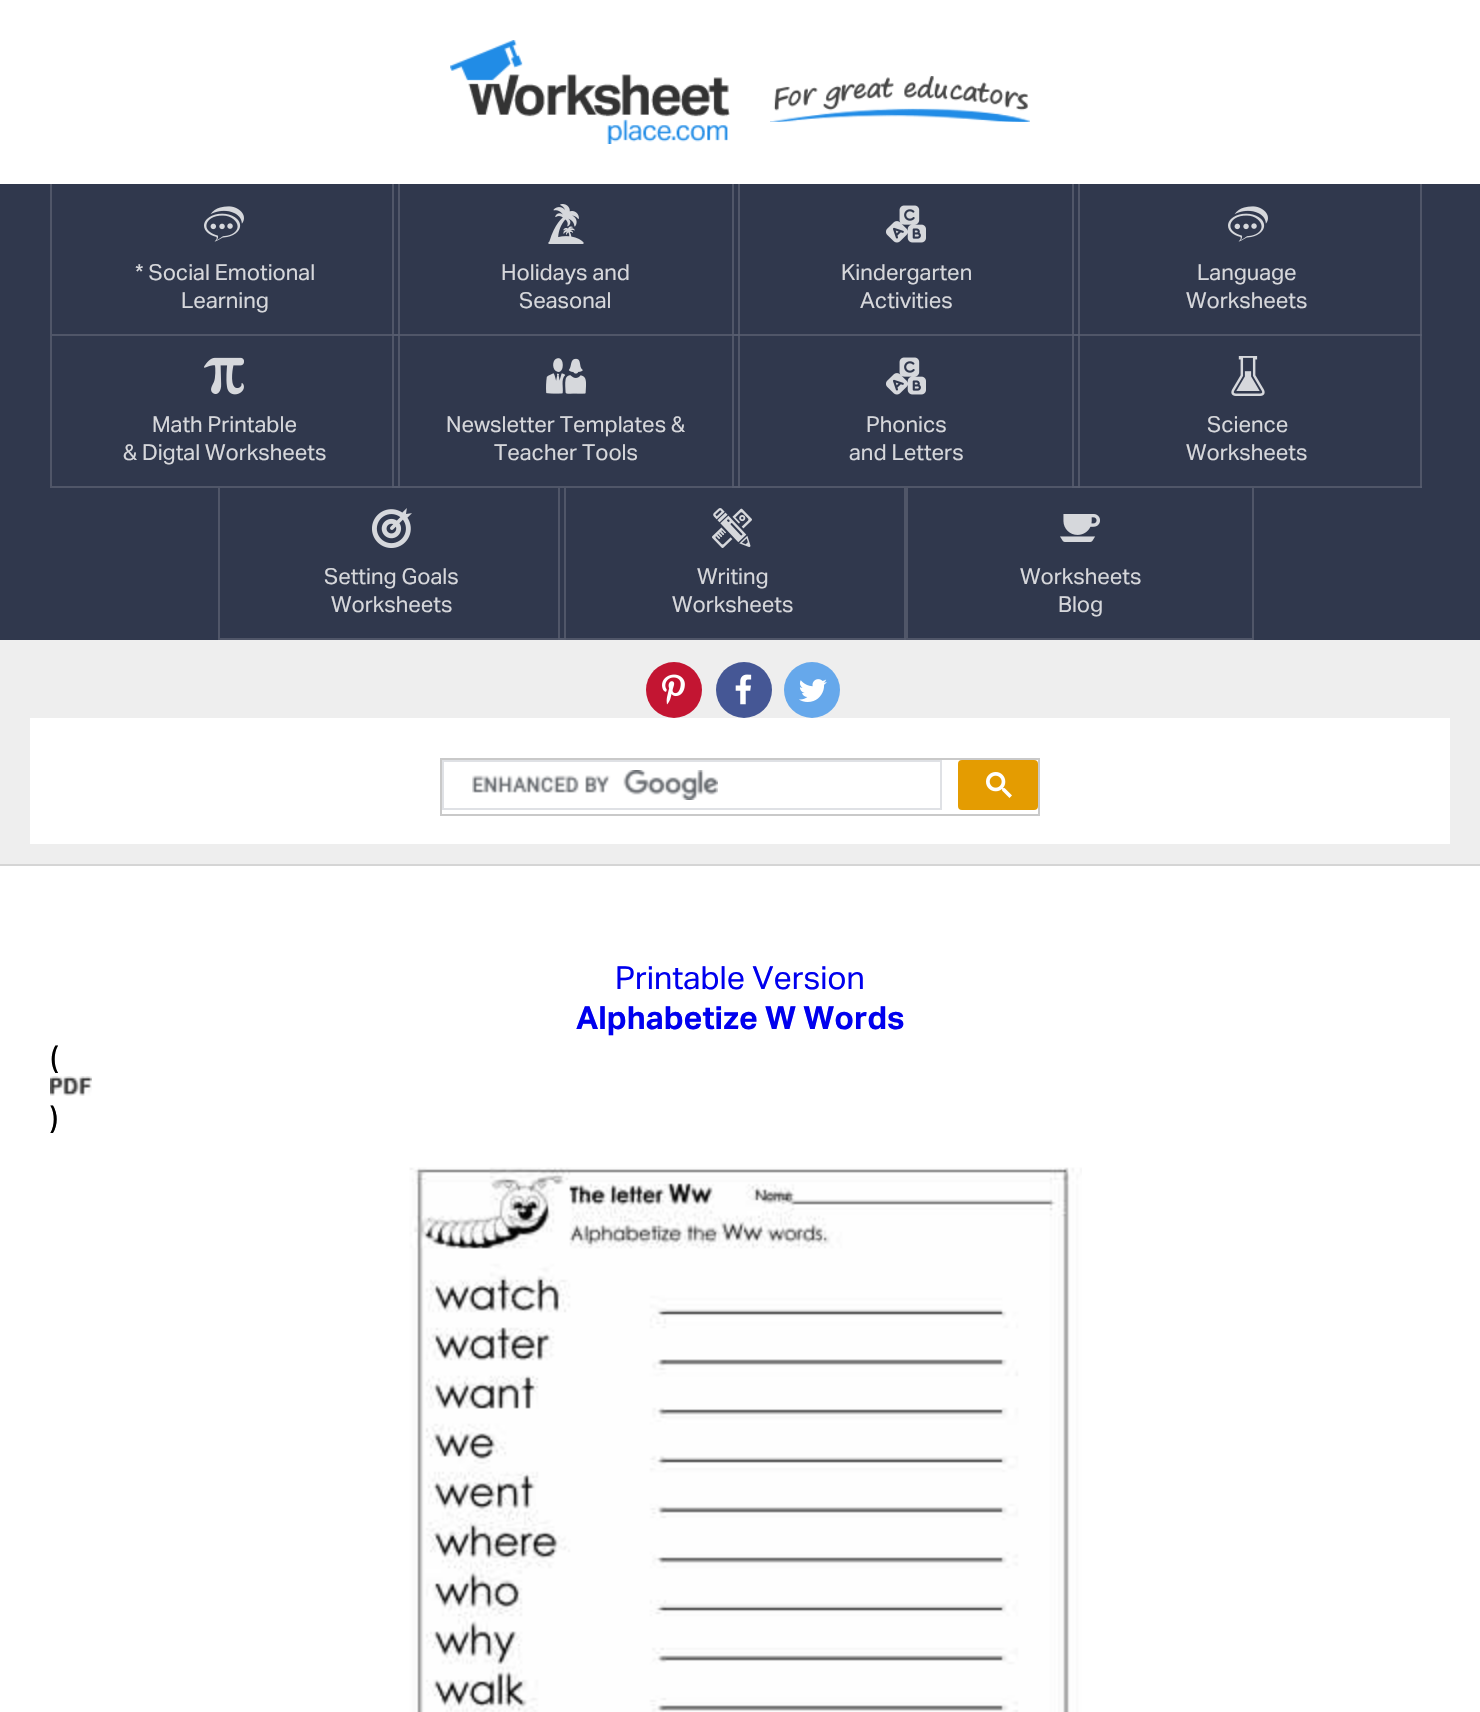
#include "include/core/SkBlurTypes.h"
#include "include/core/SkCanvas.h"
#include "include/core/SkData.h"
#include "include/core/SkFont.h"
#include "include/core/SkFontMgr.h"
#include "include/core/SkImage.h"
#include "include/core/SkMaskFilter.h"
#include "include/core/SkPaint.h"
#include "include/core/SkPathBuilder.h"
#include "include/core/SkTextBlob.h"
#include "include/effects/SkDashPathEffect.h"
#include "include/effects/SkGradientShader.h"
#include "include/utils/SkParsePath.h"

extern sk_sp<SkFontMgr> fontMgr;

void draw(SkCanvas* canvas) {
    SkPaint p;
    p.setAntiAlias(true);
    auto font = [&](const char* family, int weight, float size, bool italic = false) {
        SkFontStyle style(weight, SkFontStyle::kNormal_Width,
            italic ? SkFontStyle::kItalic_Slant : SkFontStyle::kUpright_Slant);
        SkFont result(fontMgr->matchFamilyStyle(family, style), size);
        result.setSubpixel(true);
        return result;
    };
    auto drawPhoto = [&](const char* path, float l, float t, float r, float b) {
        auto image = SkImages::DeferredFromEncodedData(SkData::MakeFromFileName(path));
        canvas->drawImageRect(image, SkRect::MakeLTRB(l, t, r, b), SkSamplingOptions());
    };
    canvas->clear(0xFFFFFFFF);
    drawPhoto("media/1.png", 450, 40, 730, 144);
    drawPhoto("media/2.png", 770, 76, 1030, 122);
    {
        const struct { float l, t, r, b; SkColor color; } items[] = {
            {0, 184, 1480, 640, 0xFF30384D},
            {558, 488, 560, 640, 0xFF505668},
            {558, 638, 906, 640, 0xFF505668},
            {1072, 184, 1074, 488, 0xFF505668},
            {1072, 486, 1422, 488, 0xFF505668},
            {732, 184, 734, 488, 0xFF505668},
            {732, 486, 1080, 488, 0xFF505668},
            {1072, 486, 1080, 488, 0xFF565C6E},
            {392, 184, 394, 488, 0xFF505668},
            {392, 486, 740, 488, 0xFF505668},
            {732, 486, 740, 488, 0xFF565C6E},
            {392, 334, 1422, 336, 0xFF505668},
            {1072, 334, 1080, 336, 0xFF565C6E},
            {732, 334, 740, 336, 0xFF565C6E},
            {398, 184, 400, 488, 0xFF505668},
            {50, 334, 400, 336, 0xFF505668},
            {392, 334, 400, 336, 0xFF565C6E},
            {50, 184, 52, 336, 0xFF505668},
        };
        for (auto [l, t, r, b, color] : items) {
            p.setColor(color);
            canvas->drawRect(SkRect::MakeLTRB(l, t, r, b), p);
        }
    }
    drawPhoto("media/3.png", 204, 206, 244, 242);
    auto font1 = font("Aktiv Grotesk", 400, 22);
    p.setColor(0xFFD6D7DB);
    canvas->drawString("* Social Emotional", 135, 280, font1, p);
    canvas->drawString("Learning", 181, 308, font1, p);
    p.setColor(0xFF505668);
    canvas->drawRect(SkRect::MakeLTRB(738, 184, 740, 488), p);
    p.setColor(0xFF585E6F);
    canvas->drawRect(SkRect::MakeLTRB(738, 334, 740, 336), p);
    drawPhoto("media/4.png", 548, 204, 584, 244);
    p.setColor(0xFFD6D7DB);
    canvas->drawString("Holidays and", 501, 280, font1, p);
    canvas->drawString("Seasonal", 519, 308, font1, p);
    p.setColor(0xFF505668);
    canvas->drawRect(SkRect::MakeLTRB(1078, 184, 1080, 488), p);
    p.setColor(0xFF585E6F);
    canvas->drawRect(SkRect::MakeLTRB(1078, 334, 1080, 336), p);
    drawPhoto("media/5.png", 886, 205, 926, 243);
    p.setColor(0xFFD6D7DB);
    canvas->drawString("Kindergarten", 841, 280, font1, p);
    canvas->drawString("Activities", 860, 308, font1, p);
    p.setColor(0xFF505668);
    canvas->drawRect(SkRect::MakeLTRB(1420, 184, 1422, 488), p);
    p.setColor(0xFF565C6E);
    canvas->drawRect(SkRect::MakeLTRB(1420, 334, 1422, 336), p);
    drawPhoto("media/3.png", 1228, 206, 1268, 242);
    p.setColor(0xFFD6D7DB);
    canvas->drawString("Language", 1197, 280, font1, p);
    canvas->drawString("Worksheets", 1186, 308, font1, p);
    {
        const struct { float l, t, r, b; SkColor color; } items[] = {
            {50, 486, 400, 488, 0xFF505668},
            {392, 486, 400, 488, 0xFF565C6E},
            {50, 336, 52, 488, 0xFF505668},
        };
        for (auto [l, t, r, b, color] : items) {
            p.setColor(color);
            canvas->drawRect(SkRect::MakeLTRB(l, t, r, b), p);
        }
    }
    drawPhoto("media/6.png", 204, 357, 244, 395);
    p.setColor(0xFFD6D7DB);
    canvas->drawString("Math Printable", 152, 432, font1, p);
    canvas->drawString("& Digtal Worksheets", 123, 460, font1, p);
    p.setColor(0xFF585E6F);
    canvas->drawRect(SkRect::MakeLTRB(738, 486, 740, 488), p);
    drawPhoto("media/7.png", 546, 358, 586, 394);
    p.setColor(0xFFD6D7DB);
    canvas->drawString("Newsletter Templates &", 446, 432, font1, p);
    canvas->drawString("Teacher Tools", 494, 460, font1, p);
    p.setColor(0xFF585E6F);
    canvas->drawRect(SkRect::MakeLTRB(1078, 486, 1080, 488), p);
    drawPhoto("media/5.png", 886, 357, 926, 395);
    p.setColor(0xFFD6D7DB);
    canvas->drawString("Phonics", 866, 432, font1, p);
    canvas->drawString("and Letters", 849, 460, font1, p);
    p.setColor(0xFF565C6E);
    canvas->drawRect(SkRect::MakeLTRB(1420, 486, 1422, 488), p);
    drawPhoto("media/8.png", 1231, 356, 1265, 396);
    p.setColor(0xFFD6D7DB);
    canvas->drawString("Science", 1207, 432, font1, p);
    canvas->drawString("Worksheets", 1186, 460, font1, p);
    {
        const struct { float l, t, r, b; SkColor color; } items[] = {
            {564, 488, 566, 640, 0xFF505668},
            {218, 638, 566, 640, 0xFF505668},
            {558, 638, 566, 640, 0xFF565C6E},
            {218, 488, 220, 640, 0xFF505668},
        };
        for (auto [l, t, r, b, color] : items) {
            p.setColor(color);
            canvas->drawRect(SkRect::MakeLTRB(l, t, r, b), p);
        }
    }
    drawPhoto("media/9.png", 372, 508, 412, 548);
    p.setColor(0xFFD6D7DB);
    canvas->drawString("Setting Goals", 324, 584, font1, p);
    canvas->drawString("Worksheets", 331, 612, font1, p);
    p.setColor(0xFF505668);
    canvas->drawRect(SkRect::MakeLTRB(904, 488, 906, 640), p);
    p.setColor(0xFF565C6E);
    canvas->drawRect(SkRect::MakeLTRB(904, 638, 906, 640), p);
    drawPhoto("media/10.png", 712, 508, 752, 548);
    p.setColor(0xFFD6D7DB);
    canvas->drawString("Writing", 697, 584, font1, p);
    canvas->drawString("Worksheets", 672, 612, font1, p);
    {
        const struct { float l, t, r, b; SkColor color; } items[] = {
            {1252, 488, 1254, 640, 0xFF505668},
            {906, 638, 1254, 640, 0xFF505668},
            {906, 488, 908, 640, 0xFF505668},
        };
        for (auto [l, t, r, b, color] : items) {
            p.setColor(color);
            canvas->drawRect(SkRect::MakeLTRB(l, t, r, b), p);
        }
    }
    drawPhoto("media/11.png", 1060, 514, 1100, 542);
    p.setColor(0xFFD6D7DB);
    canvas->drawString("Worksheets", 1020, 584, font1, p);
    canvas->drawString("Blog", 1058, 612, font1, p);
    p.setColor(0xFFEEEEEE);
    canvas->drawRect(SkRect::MakeLTRB(0, 640, 1480, 864), p);
    p.setColor(0xFFD5D5D5);
    canvas->drawRect(SkRect::MakeLTRB(0, 864, 1480, 866), p);
    p.setColor(0xFFC31532);
    canvas->drawCircle(674, 690, 28, p);
    drawPhoto("media/12.png", 662, 674, 685, 705);
    p.setColor(0xFF455795);
    canvas->drawCircle(744, 690, 28, p);
    drawPhoto("media/13.png", 735, 674, 752, 705);
    p.setColor(0xFF66A8EB);
    canvas->drawCircle(812, 690, 28, p);
    drawPhoto("media/14.png", 799, 679, 827, 702);
    p.setColor(0xFFFFFFFF);
    canvas->drawRect(SkRect::MakeLTRB(30, 718, 1450, 844), p);
    p.setStyle(SkPaint::kStroke_Style);
    p.setStrokeWidth(2);
    p.setColor(0xFFC9C9C9);
    canvas->drawRect(SkRect::MakeLTRB(441, 759, 1039, 815), p);
    p.setColor(0xFFDFE1E5);
    canvas->drawRect(SkRect::MakeLTRB(443, 761, 941, 809), p);
    drawPhoto("media/15.png", 472, 770, 718, 800);
    p.setStyle(SkPaint::kFill_Style);
    p.setColor(0xFFE49C01);
    canvas->drawRoundRect(SkRect::MakeLTRB(958, 760, 1038, 810), 4, 4, p);
    drawPhoto("media/16.png", 986, 772, 1012, 798);
    auto font2 = font("Aktiv Grotesk", 400, 32);
    p.setColor(0xFF0000EE);
    canvas->drawString("Printable Version", 615, 989, font2, p);
    auto font3 = font("Aktiv Grotesk", 700, 32);
    canvas->drawString("Alphabetize W Words", 576, 1029, font3, p);
    p.setColor(0xFF000000);
    canvas->drawString("(", 50, 1069, font2, p);
    drawPhoto("media/17.png", 50, 1076, 92, 1096);
    canvas->drawString(")", 50, 1129, font2, p);
    drawPhoto("media/18.png", 409, 1167, 1082, 1712);
}
